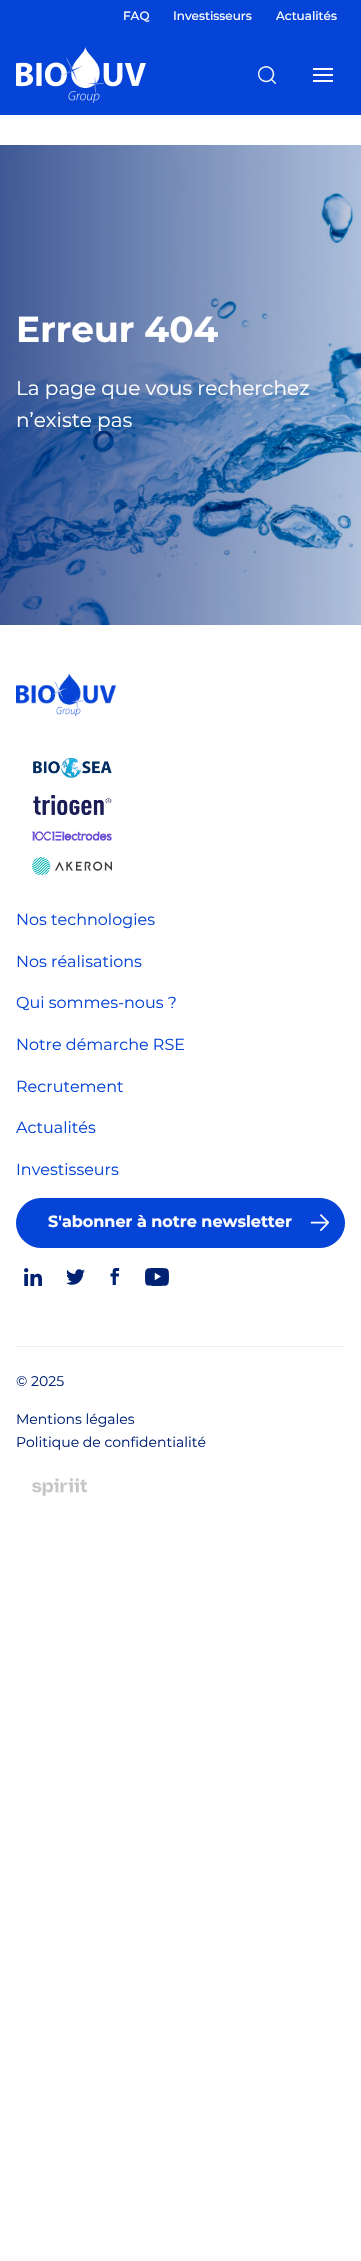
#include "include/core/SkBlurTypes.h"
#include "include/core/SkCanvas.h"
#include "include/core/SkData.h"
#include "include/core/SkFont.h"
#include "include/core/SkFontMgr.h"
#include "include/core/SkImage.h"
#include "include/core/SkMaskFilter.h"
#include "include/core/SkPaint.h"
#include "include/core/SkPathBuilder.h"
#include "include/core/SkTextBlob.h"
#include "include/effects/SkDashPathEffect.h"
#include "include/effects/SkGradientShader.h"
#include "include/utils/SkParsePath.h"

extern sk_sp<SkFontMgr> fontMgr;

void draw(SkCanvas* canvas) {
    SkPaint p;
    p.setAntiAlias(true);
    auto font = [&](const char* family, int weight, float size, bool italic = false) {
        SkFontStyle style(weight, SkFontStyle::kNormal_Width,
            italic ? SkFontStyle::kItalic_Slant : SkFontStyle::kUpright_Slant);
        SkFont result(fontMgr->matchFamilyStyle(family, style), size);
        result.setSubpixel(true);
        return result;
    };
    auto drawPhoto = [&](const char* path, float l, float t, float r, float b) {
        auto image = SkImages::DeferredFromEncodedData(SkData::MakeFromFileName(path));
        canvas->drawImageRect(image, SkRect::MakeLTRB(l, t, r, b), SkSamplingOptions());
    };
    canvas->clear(0xFFFFFFFF);
    p.setColor(0xFF0644D7);
    canvas->drawRect(SkRect::MakeLTRB(0, 0, 361, 115), p);
    auto font1 = font("Montserrat", 500, 12);
    p.setColor(0xFFFFFFFF);
    {
        const struct { const char* s; float x, y; } items[] = {
            {"FAQ", 123, 20},
            {"Investisseurs", 173, 20},
            {"Actualités", 276, 20},
        };
        for (auto [s, x, y] : items) {
            canvas->drawString(s, x, y, font1, p);
        }
    }
    drawPhoto("media/1.png", 16, 47, 146, 103);
    drawPhoto("media/2.png", 258, 66, 276, 84);
    {
        const struct { float l, t, r, b; SkColor color; } items[] = {
            {313, 74, 333, 76, 0xFFFFFFFF},
            {313, 68, 333, 70, 0xFFFFFFFF},
            {313, 80, 333, 82, 0xFFFFFFFF},
        };
        for (auto [l, t, r, b, color] : items) {
            p.setColor(color);
            canvas->drawRect(SkRect::MakeLTRB(l, t, r, b), p);
        }
    }
    drawPhoto("media/3.png", 0, 145, 361, 625);
    auto font2 = font("Montserrat", 700, 36);
    canvas->drawString("Erreur 404", 16, 342, font2, p);
    auto font3 = font("Montserrat", 400, 20);
    canvas->drawString("La page que vous recherchez", 16, 395, font3, p);
    canvas->drawString("n’existe pas", 16, 427, font3, p);
    drawPhoto("media/4.png", 16, 673, 116, 716);
    drawPhoto("media/5.png", 33, 758, 112, 778);
    drawPhoto("media/6.png", 33, 795, 112, 815);
    drawPhoto("media/7.png", 32, 831, 112, 841);
    drawPhoto("media/8.png", 32, 857, 112, 875);
    auto font4 = font("Montserrat", 400, 16);
    p.setColor(0xFF0644D7);
    {
        const struct { const char* s; float x, y; } items[] = {
            {"Nos technologies", 16, 925},
            {"Nos réalisations", 16, 967},
            {"Qui sommes-nous ?", 16, 1008},
            {"Notre démarche RSE", 16, 1050},
            {"Recrutement", 16, 1092},
            {"Actualités", 16, 1133},
            {"Investisseurs", 16, 1175},
        };
        for (auto [s, x, y] : items) {
            canvas->drawString(s, x, y, font4, p);
        }
    }
    canvas->drawRoundRect(SkRect::MakeLTRB(16.5f, 1198.5f, 344.5f, 1247.5f), 24.5f, 24.5f, p);
    p.setStyle(SkPaint::kStroke_Style);
    p.setStrokeWidth(1);
    canvas->drawRoundRect(SkRect::MakeLTRB(16.5f, 1198.5f, 344.5f, 1247.5f), 24.5f, 24.5f, p);
    auto font5 = font("Montserrat", 700, 16);
    p.setStyle(SkPaint::kFill_Style);
    p.setColor(0xFFFFFFFF);
    canvas->drawString("S'abonner à notre newsletter", 48, 1227, font5, p);
    drawPhoto("media/9.png", 310, 1214, 329, 1232);
    drawPhoto("media/10.png", 24, 1268, 42, 1286);
    drawPhoto("media/11.png", 66, 1269, 85, 1285);
    drawPhoto("media/12.png", 110, 1268, 120, 1285);
    drawPhoto("media/13.png", 145, 1268, 169, 1286);
    p.setColor(0xFFEAECF3);
    canvas->drawRect(SkRect::MakeLTRB(16, 1346, 345, 1347), p);
    auto font6 = font("Montserrat", 400, 14);
    p.setColor(0xFF002273);
    {
        const struct { const char* s; float x, y; } items[] = {
            {"© 2025", 16, 1386},
            {"Mentions légales", 16, 1424},
            {"Politique de confidentialité", 16, 1447},
        };
        for (auto [s, x, y] : items) {
            canvas->drawString(s, x, y, font6, p);
        }
    }
    drawPhoto("media/14.png", 32, 1478, 87, 1496);
}
